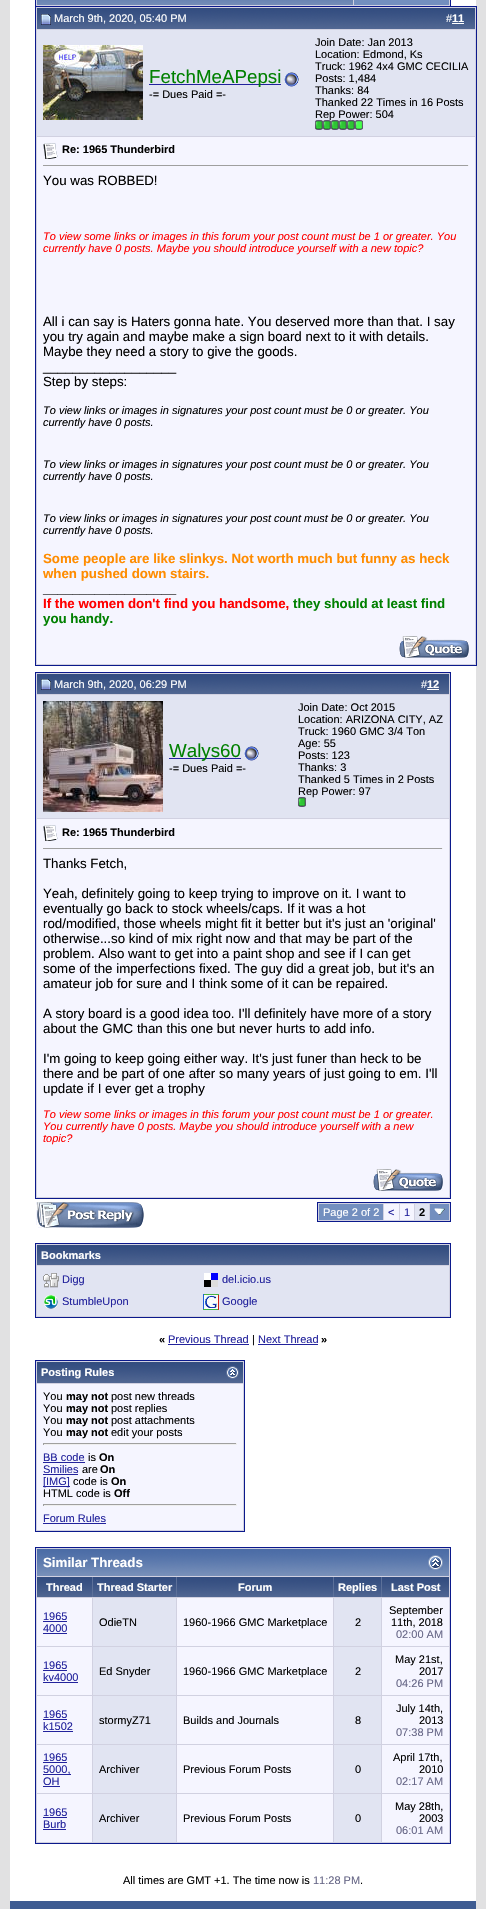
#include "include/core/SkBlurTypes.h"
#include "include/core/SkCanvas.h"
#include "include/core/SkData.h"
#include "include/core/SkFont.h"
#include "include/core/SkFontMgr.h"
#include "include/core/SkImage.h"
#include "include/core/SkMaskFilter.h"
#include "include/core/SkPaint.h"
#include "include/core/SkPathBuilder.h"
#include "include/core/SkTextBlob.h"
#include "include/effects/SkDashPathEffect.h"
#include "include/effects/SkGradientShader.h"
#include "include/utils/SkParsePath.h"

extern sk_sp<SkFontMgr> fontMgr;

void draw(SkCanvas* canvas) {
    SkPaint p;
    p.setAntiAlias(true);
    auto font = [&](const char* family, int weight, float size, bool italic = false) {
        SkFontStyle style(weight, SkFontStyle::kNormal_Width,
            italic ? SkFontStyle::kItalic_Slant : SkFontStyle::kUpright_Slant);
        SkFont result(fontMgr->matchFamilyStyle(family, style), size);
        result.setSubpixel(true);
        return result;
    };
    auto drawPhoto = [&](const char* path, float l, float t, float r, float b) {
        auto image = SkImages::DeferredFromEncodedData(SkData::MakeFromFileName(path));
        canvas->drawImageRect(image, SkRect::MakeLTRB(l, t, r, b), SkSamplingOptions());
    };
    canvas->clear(0xFFE1E1E2);
    {
        const struct { float l, t, r, b; SkColor color; } items[] = {
            {10, 0, 476, 1901, 0xFFFFFFFF},
            {36, 0, 450, 6, 0xFFD1D1E1},
            {450, 0, 451, 6, 0xFF0B198C},
            {35, 0, 36, 6, 0xFF0B198C},
        };
        for (auto [l, t, r, b, color] : items) {
            p.setColor(color);
            canvas->drawRect(SkRect::MakeLTRB(l, t, r, b), p);
        }
    }
    drawPhoto("media/1.png", 37, 0, 353, 5);
    p.setColor(0xFF738FBF);
    canvas->drawRect(SkRect::MakeLTRB(354, 0, 449, 5), p);
    p.setColor(0xFFD1D1E1);
    canvas->drawRect(SkRect::MakeLTRB(35.5f, 6.5f, 476.5f, 665.5f), p);
    p.setStyle(SkPaint::kStroke_Style);
    p.setStrokeWidth(1);
    p.setColor(0xFF0B198C);
    canvas->drawRect(SkRect::MakeLTRB(35.5f, 6.5f, 476.5f, 665.5f), p);
    drawPhoto("media/2.png", 37, 8, 475, 29);
    drawPhoto("media/3.png", 41, 14, 51, 25);
    auto font1 = font("Liberation Sans", 400, 11);
    p.setStyle(SkPaint::kFill_Style);
    p.setColor(0xFFFFFFFF);
    canvas->drawString("March 9th, 2020, 05:40 PM", 54, 22, font1, p);
    canvas->drawString("#", 446, 22, font1, p);
    auto font2 = font("Liberation Sans", 700, 11);
    canvas->drawString("11", 452, 22, font2, p);
    canvas->drawRect(SkRect::MakeLTRB(452, 23, 464, 24), p);
    p.setColor(0xFFE1E4F2);
    canvas->drawRect(SkRect::MakeLTRB(37, 30, 475, 136), p);
    drawPhoto("media/4.png", 43, 45, 143, 120);
    p.setColor(0xFF22229C);
    canvas->drawRect(SkRect::MakeLTRB(149, 84, 281, 85), p);
    auto font3 = font("Liberation Sans", 400, 18.75f);
    p.setColor(0xFF008000);
    canvas->drawString("FetchMeAPepsi", 149, 83, font3, p);
    drawPhoto("media/5.png", 284, 72, 299, 87);
    p.setColor(0xFF000000);
    {
        const struct { const char* s; float x, y; } items[] = {
            {"-= Dues Paid =-", 149, 98},
            {"Join Date: Jan 2013", 315, 46},
            {"Location: Edmond, Ks", 315, 58},
            {"Truck: 1962 4x4 GMC CECILIA", 315, 70},
            {"Posts: 1,484", 315, 82},
            {"Thanks: 84", 315, 94},
            {"Thanked 22 Times in 16 Posts", 315, 106},
            {"Rep Power: 504", 315, 118},
        };
        for (auto [s, x, y] : items) {
            canvas->drawString(s, x, y, font1, p);
        }
    }
    drawPhoto("media/6.png", 315, 120, 323, 130);
    drawPhoto("media/6.png", 323, 120, 331, 130);
    drawPhoto("media/6.png", 331, 120, 339, 130);
    drawPhoto("media/6.png", 339, 120, 347, 130);
    drawPhoto("media/6.png", 347, 120, 355, 130);
    drawPhoto("media/7.png", 355, 120, 363, 130);
    p.setColor(0xFFF5F5FF);
    canvas->drawRect(SkRect::MakeLTRB(37, 137, 475, 664), p);
    drawPhoto("media/8.png", 43, 143, 58, 159);
    p.setColor(0xFF000000);
    canvas->drawString("Re: 1965 Thunderbird", 62, 153, font2, p);
    p.setColor(0xFF9F9F9F);
    canvas->drawRect(SkRect::MakeLTRB(43, 165, 469, 166), p);
    p.setColor(0xFFEEEEEE);
    canvas->drawRect(SkRect::MakeLTRB(468, 165, 469, 166), p);
    auto font4 = font("Liberation Sans", 400, 13.3f);
    p.setColor(0xFF000000);
    canvas->drawString("You was ROBBED!", 43, 185, font4, p);
    auto font5 = font("Liberation Sans", 400, 11, true);
    p.setColor(0xFFFF0000);
    canvas->drawString("To view some links or images in this forum your post count must be 1 or greater. You", 43, 240, font5, p);
    canvas->drawString("currently have 0 posts. Maybe you should introduce yourself with a new topic?", 43, 252, font5, p);
    p.setColor(0xFF000000);
    {
        const struct { const char* s; float x, y; } items[] = {
            {"All i can say is Haters gonna hate. You deserved more than that. I say", 43, 326},
            {"you try again and maybe make a sign board next to it with details.", 43, 341},
            {"Maybe they need a story to give the goods.", 43, 356},
            {"__________________", 43, 371},
            {"Step by steps:", 43, 386},
        };
        for (auto [s, x, y] : items) {
            canvas->drawString(s, x, y, font4, p);
        }
    }
    {
        const struct { const char* s; float x, y; } items[] = {
            {"To view links or images in signatures your post count must be 0 or greater. You", 43, 414},
            {"currently have 0 posts.", 43, 426},
            {"To view links or images in signatures your post count must be 0 or greater. You", 43, 468},
            {"currently have 0 posts.", 43, 480},
            {"To view links or images in signatures your post count must be 0 or greater. You", 43, 522},
            {"currently have 0 posts.", 43, 534},
        };
        for (auto [s, x, y] : items) {
            canvas->drawString(s, x, y, font5, p);
        }
    }
    auto font6 = font("Liberation Sans", 700, 13.3f);
    p.setColor(0xFFFF8C00);
    canvas->drawString("Some people are like slinkys. Not worth much but funny as heck", 43, 563, font6, p);
    canvas->drawString("when pushed down stairs.", 43, 578, font6, p);
    p.setColor(0xFF000000);
    canvas->drawString("__________________", 43, 593, font6, p);
    p.setColor(0xFFFF0000);
    canvas->drawString("If the women don't find you handsome,", 43, 608, font6, p);
    p.setColor(0xFF008000);
    canvas->drawString("they should at least find", 293, 608, font6, p);
    canvas->drawString("you handy.", 43, 623, font6, p);
    drawPhoto("media/9.png", 399, 636, 469, 658);
    p.setColor(0xFFD1D1E1);
    canvas->drawRect(SkRect::MakeLTRB(35.5f, 672.5f, 450.5f, 1198.5f), p);
    p.setStyle(SkPaint::kStroke_Style);
    p.setColor(0xFF0B198C);
    canvas->drawRect(SkRect::MakeLTRB(35.5f, 672.5f, 450.5f, 1198.5f), p);
    drawPhoto("media/10.png", 37, 674, 449, 694);
    drawPhoto("media/11.png", 41, 679, 51, 690);
    p.setStyle(SkPaint::kFill_Style);
    p.setColor(0xFFFFFFFF);
    canvas->drawString("March 9th, 2020, 06:29 PM", 54, 688, font1, p);
    canvas->drawString("#", 421, 688, font1, p);
    canvas->drawString("12", 427, 688, font2, p);
    canvas->drawRect(SkRect::MakeLTRB(427, 689, 439, 690), p);
    p.setColor(0xFFE1E4F2);
    canvas->drawRect(SkRect::MakeLTRB(37, 695, 449, 818), p);
    drawPhoto("media/12.png", 43, 701, 163, 812);
    p.setColor(0xFF22229C);
    canvas->drawRect(SkRect::MakeLTRB(169, 758, 241, 759), p);
    p.setColor(0xFF008000);
    canvas->drawString("Walys60", 169, 757, font3, p);
    drawPhoto("media/5.png", 244, 746, 259, 761);
    p.setColor(0xFF000000);
    {
        const struct { const char* s; float x, y; } items[] = {
            {"-= Dues Paid =-", 169, 772},
            {"Join Date: Oct 2015", 298, 711},
            {"Location: ARIZONA CITY, AZ", 298, 723},
            {"Truck: 1960 GMC 3/4 Ton", 298, 735},
            {"Age: 55", 298, 747},
            {"Posts: 123", 298, 759},
            {"Thanks: 3", 298, 771},
            {"Thanked 5 Times in 2 Posts", 298, 783},
            {"Rep Power: 97", 298, 795},
        };
        for (auto [s, x, y] : items) {
            canvas->drawString(s, x, y, font1, p);
        }
    }
    drawPhoto("media/6.png", 298, 797, 306, 807);
    p.setColor(0xFFF5F5FF);
    canvas->drawRect(SkRect::MakeLTRB(37, 819, 449, 1197), p);
    drawPhoto("media/8.png", 43, 825, 58, 841);
    p.setColor(0xFF000000);
    canvas->drawString("Re: 1965 Thunderbird", 62, 836, font2, p);
    p.setColor(0xFF9F9F9F);
    canvas->drawRect(SkRect::MakeLTRB(43, 848, 443, 849), p);
    p.setColor(0xFFEEEEEE);
    canvas->drawRect(SkRect::MakeLTRB(442, 848, 443, 849), p);
    p.setColor(0xFF000000);
    {
        const struct { const char* s; float x, y; } items[] = {
            {"Thanks Fetch,", 43, 868},
            {"Yeah, definitely going to keep trying to improve on it. I want to", 43, 898},
            {"eventually go back to stock wheels/caps. If it was a hot", 43, 913},
            {"rod/modified, those wheels might fit it better but it's just an 'original'", 43, 928},
            {"otherwise...so kind of mix right now and that may be part of the", 43, 943},
            {"problem. Also want to get into a paint shop and see if I can get", 43, 958},
            {"some of the imperfections fixed. The guy did a great job, but it's an", 43, 973},
            {"amateur job for sure and I think some of it can be repaired.", 43, 988},
            {"A story board is a good idea too. I'll definitely have more of a story", 43, 1018},
            {"about the GMC than this one but never hurts to add info.", 43, 1033},
            {"I'm going to keep going either way. It's just funer than heck to be", 43, 1063},
            {"there and be part of one after so many years of just going to em. I'll", 43, 1078},
            {"update if I ever get a trophy", 43, 1093},
        };
        for (auto [s, x, y] : items) {
            canvas->drawString(s, x, y, font4, p);
        }
    }
    p.setColor(0xFFFF0000);
    {
        const struct { const char* s; float x, y; } items[] = {
            {"To view some links or images in this forum your post count must be 1 or greater.", 43, 1118},
            {"You currently have 0 posts. Maybe you should introduce yourself with a new", 43, 1130},
            {"topic?", 43, 1142},
        };
        for (auto [s, x, y] : items) {
            canvas->drawString(s, x, y, font5, p);
        }
    }
    drawPhoto("media/9.png", 373, 1169, 443, 1191);
    drawPhoto("media/13.png", 36, 1202, 144, 1228);
    p.setColor(0xFFD1D1E1);
    canvas->drawRect(SkRect::MakeLTRB(317.5f, 1202.5f, 450.5f, 1221.5f), p);
    p.setStyle(SkPaint::kStroke_Style);
    p.setColor(0xFF0B198C);
    canvas->drawRect(SkRect::MakeLTRB(317.5f, 1202.5f, 450.5f, 1221.5f), p);
    p.setStyle(SkPaint::kFill_Style);
    p.setColor(0xFF738FBF);
    canvas->drawRect(SkRect::MakeLTRB(319, 1204, 383, 1220), p);
    p.setColor(0xFFFFFFFF);
    canvas->drawString("Page 2 of 2", 323, 1216, font1, p);
    p.setColor(0xFFF5F5FF);
    canvas->drawRect(SkRect::MakeLTRB(384, 1204, 399, 1220), p);
    p.setColor(0xFF22229C);
    canvas->drawString("<", 388, 1216, font1, p);
    p.setColor(0xFFF5F5FF);
    canvas->drawRect(SkRect::MakeLTRB(400, 1204, 414, 1220), p);
    p.setColor(0xFF22229C);
    canvas->drawString("1", 404, 1216, font1, p);
    p.setColor(0xFFE1E4F2);
    canvas->drawRect(SkRect::MakeLTRB(415, 1204, 429, 1220), p);
    p.setColor(0xFF000000);
    canvas->drawString("2", 419, 1216, font2, p);
    p.setColor(0xFF738FBF);
    canvas->drawRect(SkRect::MakeLTRB(430, 1204, 449, 1220), p);
    drawPhoto("media/14.png", 434, 1208, 445, 1215);
    p.setColor(0xFFD1D1E1);
    canvas->drawRect(SkRect::MakeLTRB(35.5f, 1243.5f, 450.5f, 1317.5f), p);
    p.setStyle(SkPaint::kStroke_Style);
    p.setColor(0xFF0B198C);
    canvas->drawRect(SkRect::MakeLTRB(35.5f, 1243.5f, 450.5f, 1317.5f), p);
    drawPhoto("media/10.png", 37, 1245, 449, 1265);
    p.setStyle(SkPaint::kFill_Style);
    p.setColor(0xFFFFFFFF);
    canvas->drawString("Bookmarks", 41, 1259, font2, p);
    p.setColor(0xFFE1E4F2);
    canvas->drawRect(SkRect::MakeLTRB(37, 1266, 449, 1316), p);
    drawPhoto("media/15.png", 43, 1273, 59, 1288);
    p.setColor(0xFF22229C);
    canvas->drawString("Digg", 62, 1283, font1, p);
    drawPhoto("media/16.png", 204, 1273, 218, 1287);
    canvas->drawString("del.icio.us", 222, 1283, font1, p);
    drawPhoto("media/17.png", 44, 1295, 58, 1309);
    canvas->drawString("StumbleUpon", 62, 1305, font1, p);
    drawPhoto("media/18.png", 203, 1294, 219, 1310);
    canvas->drawString("Google", 222, 1305, font1, p);
    p.setColor(0xFF000000);
    canvas->drawString("«", 159, 1343, font2, p);
    p.setColor(0xFF22229C);
    canvas->drawString("Previous Thread", 168, 1343, font1, p);
    canvas->drawRect(SkRect::MakeLTRB(168, 1344, 249, 1345), p);
    p.setColor(0xFF000000);
    canvas->drawString("|", 252, 1343, font1, p);
    p.setColor(0xFF22229C);
    canvas->drawString("Next Thread", 258, 1343, font1, p);
    canvas->drawRect(SkRect::MakeLTRB(258, 1344, 318, 1345), p);
    p.setColor(0xFF000000);
    canvas->drawString("»", 321, 1343, font2, p);
    p.setColor(0xFFD1D1E1);
    canvas->drawRect(SkRect::MakeLTRB(35.5f, 1360.5f, 244.5f, 1531.5f), p);
    p.setStyle(SkPaint::kStroke_Style);
    p.setColor(0xFF0B198C);
    canvas->drawRect(SkRect::MakeLTRB(35.5f, 1360.5f, 244.5f, 1531.5f), p);
    drawPhoto("media/19.png", 37, 1362, 243, 1383);
    p.setStyle(SkPaint::kFill_Style);
    p.setColor(0xFFFFFFFF);
    canvas->drawString("Posting Rules", 41, 1376, font2, p);
    drawPhoto("media/20.png", 226, 1366, 239, 1379);
    p.setColor(0xFFF5F5FF);
    canvas->drawRect(SkRect::MakeLTRB(37, 1384, 243, 1530), p);
    p.setColor(0xFF000000);
    canvas->drawString("You", 43, 1400, font1, p);
    canvas->drawString("may not", 66, 1400, font2, p);
    canvas->drawString("post new threads", 111, 1400, font1, p);
    canvas->drawString("You", 43, 1412, font1, p);
    canvas->drawString("may not", 66, 1412, font2, p);
    canvas->drawString("post replies", 111, 1412, font1, p);
    canvas->drawString("You", 43, 1424, font1, p);
    canvas->drawString("may not", 66, 1424, font2, p);
    canvas->drawString("post attachments", 111, 1424, font1, p);
    canvas->drawString("You", 43, 1436, font1, p);
    canvas->drawString("may not", 66, 1436, font2, p);
    canvas->drawString("edit your posts", 111, 1436, font1, p);
    {
        const struct { float l, t, r, b; SkColor color; } items[] = {
            {43, 1443, 237, 1444, 0xFF9F9F9F},
            {236, 1443, 237, 1445, 0xFFEEEEEE},
            {43, 1444, 237, 1445, 0xFFEEEEEE},
            {43, 1443, 44, 1445, 0xFF9F9F9F},
        };
        for (auto [l, t, r, b, color] : items) {
            p.setColor(color);
            canvas->drawRect(SkRect::MakeLTRB(l, t, r, b), p);
        }
    }
    p.setColor(0xFF22229C);
    canvas->drawString("BB code", 43, 1461, font1, p);
    canvas->drawRect(SkRect::MakeLTRB(43, 1462, 85, 1463), p);
    p.setColor(0xFF000000);
    canvas->drawString("is", 88, 1461, font1, p);
    canvas->drawString("On", 99, 1461, font2, p);
    p.setColor(0xFF22229C);
    canvas->drawString("Smilies", 43, 1473, font1, p);
    canvas->drawRect(SkRect::MakeLTRB(43, 1474, 78, 1475), p);
    p.setColor(0xFF000000);
    canvas->drawString("are", 82, 1473, font1, p);
    canvas->drawString("On", 100, 1473, font2, p);
    p.setColor(0xFF22229C);
    canvas->drawRect(SkRect::MakeLTRB(43, 1486, 70, 1487), p);
    canvas->drawString("[IMG]", 43, 1485, font1, p);
    p.setColor(0xFF000000);
    canvas->drawString("code is", 73, 1485, font1, p);
    canvas->drawString("On", 111, 1485, font2, p);
    canvas->drawString("HTML code is", 43, 1497, font1, p);
    canvas->drawString("Off", 114, 1497, font2, p);
    {
        const struct { float l, t, r, b; SkColor color; } items[] = {
            {43, 1504, 237, 1505, 0xFF9F9F9F},
            {236, 1504, 237, 1506, 0xFFEEEEEE},
            {43, 1505, 237, 1506, 0xFFEEEEEE},
            {43, 1504, 44, 1506, 0xFF9F9F9F},
        };
        for (auto [l, t, r, b, color] : items) {
            p.setColor(color);
            canvas->drawRect(SkRect::MakeLTRB(l, t, r, b), p);
        }
    }
    p.setColor(0xFF22229C);
    canvas->drawString("Forum Rules", 43, 1522, font1, p);
    canvas->drawRect(SkRect::MakeLTRB(43, 1523, 106, 1524), p);
    p.setColor(0xFFD1D1E1);
    canvas->drawRect(SkRect::MakeLTRB(35.5f, 1547.5f, 450.5f, 1843.5f), p);
    p.setStyle(SkPaint::kStroke_Style);
    p.setColor(0xFF0B198C);
    canvas->drawRect(SkRect::MakeLTRB(35.5f, 1547.5f, 450.5f, 1843.5f), p);
    drawPhoto("media/21.png", 37, 1549, 449, 1576);
    p.setStyle(SkPaint::kFill_Style);
    p.setColor(0xFFFFFFFF);
    canvas->drawString("Similar Threads", 43, 1567, font6, p);
    drawPhoto("media/22.png", 428, 1555, 443, 1570);
    p.setColor(0xFF5C7099);
    canvas->drawRect(SkRect::MakeLTRB(92, 1577, 382, 1597), p);
    drawPhoto("media/23.png", 37, 1577, 92, 1597);
    p.setColor(0xFFFFFFFF);
    canvas->drawString("Thread", 46, 1591, font2, p);
    drawPhoto("media/24.png", 93, 1577, 176, 1597);
    canvas->drawString("Thread Starter", 97, 1591, font2, p);
    drawPhoto("media/25.png", 177, 1577, 333, 1597);
    canvas->drawString("Forum", 238, 1591, font2, p);
    drawPhoto("media/26.png", 334, 1577, 381, 1597);
    canvas->drawString("Replies", 338, 1591, font2, p);
    drawPhoto("media/27.png", 382, 1577, 449, 1597);
    canvas->drawString("Last Post", 391, 1591, font2, p);
    p.setColor(0xFFF5F5FF);
    canvas->drawRect(SkRect::MakeLTRB(37, 1598, 92, 1646), p);
    p.setColor(0xFF22229C);
    canvas->drawString("1965", 43, 1620, font1, p);
    canvas->drawRect(SkRect::MakeLTRB(43, 1621, 67, 1622), p);
    canvas->drawString("4000", 43, 1632, font1, p);
    canvas->drawRect(SkRect::MakeLTRB(43, 1633, 67, 1634), p);
    p.setColor(0xFFE1E4F2);
    canvas->drawRect(SkRect::MakeLTRB(93, 1598, 176, 1646), p);
    p.setColor(0xFF000000);
    canvas->drawString("OdieTN", 99, 1626, font1, p);
    p.setColor(0xFFF5F5FF);
    canvas->drawRect(SkRect::MakeLTRB(177, 1598, 333, 1646), p);
    p.setColor(0xFF000000);
    canvas->drawString("1960-1966 GMC Marketplace", 183, 1626, font1, p);
    p.setColor(0xFFE1E4F2);
    canvas->drawRect(SkRect::MakeLTRB(334, 1598, 381, 1646), p);
    p.setColor(0xFF000000);
    canvas->drawString("2", 355, 1626, font1, p);
    p.setColor(0xFFF5F5FF);
    canvas->drawRect(SkRect::MakeLTRB(382, 1598, 449, 1646), p);
    p.setColor(0xFF000000);
    canvas->drawString("September", 389, 1614, font1, p);
    canvas->drawString("11th, 2018", 391, 1626, font1, p);
    p.setColor(0xFF666686);
    canvas->drawString("02:00 AM", 396, 1638, font1, p);
    p.setColor(0xFFF5F5FF);
    canvas->drawRect(SkRect::MakeLTRB(37, 1647, 92, 1695), p);
    p.setColor(0xFF22229C);
    canvas->drawString("1965", 43, 1669, font1, p);
    canvas->drawRect(SkRect::MakeLTRB(43, 1670, 67, 1671), p);
    canvas->drawString("kv4000", 43, 1681, font1, p);
    canvas->drawRect(SkRect::MakeLTRB(43, 1682, 78, 1683), p);
    p.setColor(0xFFE1E4F2);
    canvas->drawRect(SkRect::MakeLTRB(93, 1647, 176, 1695), p);
    p.setColor(0xFF000000);
    canvas->drawString("Ed Snyder", 99, 1675, font1, p);
    p.setColor(0xFFF5F5FF);
    canvas->drawRect(SkRect::MakeLTRB(177, 1647, 333, 1695), p);
    p.setColor(0xFF000000);
    canvas->drawString("1960-1966 GMC Marketplace", 183, 1675, font1, p);
    p.setColor(0xFFE1E4F2);
    canvas->drawRect(SkRect::MakeLTRB(334, 1647, 381, 1695), p);
    p.setColor(0xFF000000);
    canvas->drawString("2", 355, 1675, font1, p);
    p.setColor(0xFFF5F5FF);
    canvas->drawRect(SkRect::MakeLTRB(382, 1647, 449, 1695), p);
    p.setColor(0xFF000000);
    canvas->drawString("May 21st,", 395, 1663, font1, p);
    canvas->drawString("2017", 419, 1675, font1, p);
    p.setColor(0xFF666686);
    canvas->drawString("04:26 PM", 396, 1687, font1, p);
    p.setColor(0xFFF5F5FF);
    canvas->drawRect(SkRect::MakeLTRB(37, 1696, 92, 1744), p);
    p.setColor(0xFF22229C);
    canvas->drawString("1965", 43, 1718, font1, p);
    canvas->drawRect(SkRect::MakeLTRB(43, 1719, 67, 1720), p);
    canvas->drawString("k1502", 43, 1730, font1, p);
    canvas->drawRect(SkRect::MakeLTRB(43, 1731, 73, 1732), p);
    p.setColor(0xFFE1E4F2);
    canvas->drawRect(SkRect::MakeLTRB(93, 1696, 176, 1744), p);
    p.setColor(0xFF000000);
    canvas->drawString("stormyZ71", 99, 1724, font1, p);
    p.setColor(0xFFF5F5FF);
    canvas->drawRect(SkRect::MakeLTRB(177, 1696, 333, 1744), p);
    p.setColor(0xFF000000);
    canvas->drawString("Builds and Journals", 183, 1724, font1, p);
    p.setColor(0xFFE1E4F2);
    canvas->drawRect(SkRect::MakeLTRB(334, 1696, 381, 1744), p);
    p.setColor(0xFF000000);
    canvas->drawString("8", 355, 1724, font1, p);
    p.setColor(0xFFF5F5FF);
    canvas->drawRect(SkRect::MakeLTRB(382, 1696, 449, 1744), p);
    p.setColor(0xFF000000);
    canvas->drawString("July 14th,", 396, 1712, font1, p);
    canvas->drawString("2013", 419, 1724, font1, p);
    p.setColor(0xFF666686);
    canvas->drawString("07:38 PM", 396, 1736, font1, p);
    p.setColor(0xFFF5F5FF);
    canvas->drawRect(SkRect::MakeLTRB(37, 1745, 92, 1793), p);
    p.setColor(0xFF22229C);
    canvas->drawString("1965", 43, 1761, font1, p);
    canvas->drawRect(SkRect::MakeLTRB(43, 1762, 67, 1763), p);
    canvas->drawRect(SkRect::MakeLTRB(43, 1774, 71, 1775), p);
    canvas->drawString("5000,", 43, 1773, font1, p);
    canvas->drawString("OH", 43, 1785, font1, p);
    canvas->drawRect(SkRect::MakeLTRB(43, 1786, 60, 1787), p);
    p.setColor(0xFFE1E4F2);
    canvas->drawRect(SkRect::MakeLTRB(93, 1745, 176, 1793), p);
    p.setColor(0xFF000000);
    canvas->drawString("Archiver", 99, 1773, font1, p);
    p.setColor(0xFFF5F5FF);
    canvas->drawRect(SkRect::MakeLTRB(177, 1745, 333, 1793), p);
    p.setColor(0xFF000000);
    canvas->drawString("Previous Forum Posts", 183, 1773, font1, p);
    p.setColor(0xFFE1E4F2);
    canvas->drawRect(SkRect::MakeLTRB(334, 1745, 381, 1793), p);
    p.setColor(0xFF000000);
    canvas->drawString("0", 355, 1773, font1, p);
    p.setColor(0xFFF5F5FF);
    canvas->drawRect(SkRect::MakeLTRB(382, 1745, 449, 1793), p);
    p.setColor(0xFF000000);
    canvas->drawString("April 17th,", 393, 1761, font1, p);
    canvas->drawString("2010", 419, 1773, font1, p);
    p.setColor(0xFF666686);
    canvas->drawString("02:17 AM", 396, 1785, font1, p);
    p.setColor(0xFFF5F5FF);
    canvas->drawRect(SkRect::MakeLTRB(37, 1794, 92, 1842), p);
    p.setColor(0xFF22229C);
    canvas->drawString("1965", 43, 1816, font1, p);
    canvas->drawRect(SkRect::MakeLTRB(43, 1817, 67, 1818), p);
    canvas->drawString("Burb", 43, 1828, font1, p);
    canvas->drawRect(SkRect::MakeLTRB(43, 1829, 66, 1830), p);
    p.setColor(0xFFE1E4F2);
    canvas->drawRect(SkRect::MakeLTRB(93, 1794, 176, 1842), p);
    p.setColor(0xFF000000);
    canvas->drawString("Archiver", 99, 1822, font1, p);
    p.setColor(0xFFF5F5FF);
    canvas->drawRect(SkRect::MakeLTRB(177, 1794, 333, 1842), p);
    p.setColor(0xFF000000);
    canvas->drawString("Previous Forum Posts", 183, 1822, font1, p);
    p.setColor(0xFFE1E4F2);
    canvas->drawRect(SkRect::MakeLTRB(334, 1794, 381, 1842), p);
    p.setColor(0xFF000000);
    canvas->drawString("0", 355, 1822, font1, p);
    p.setColor(0xFFF5F5FF);
    canvas->drawRect(SkRect::MakeLTRB(382, 1794, 449, 1842), p);
    p.setColor(0xFF000000);
    canvas->drawString("May 28th,", 395, 1810, font1, p);
    canvas->drawString("2003", 419, 1822, font1, p);
    p.setColor(0xFF666686);
    canvas->drawString("06:01 AM", 396, 1834, font1, p);
    p.setColor(0xFF000000);
    canvas->drawString("All times are GMT +1. The time now is", 123, 1884, font1, p);
    p.setColor(0xFF666686);
    canvas->drawString("11:28 PM", 313, 1884, font1, p);
    p.setColor(0xFF000000);
    canvas->drawString(".", 360, 1884, font1, p);
    p.setColor(0xFF3E5C92);
    canvas->drawRect(SkRect::MakeLTRB(10, 1901, 476, 1909), p);
}
